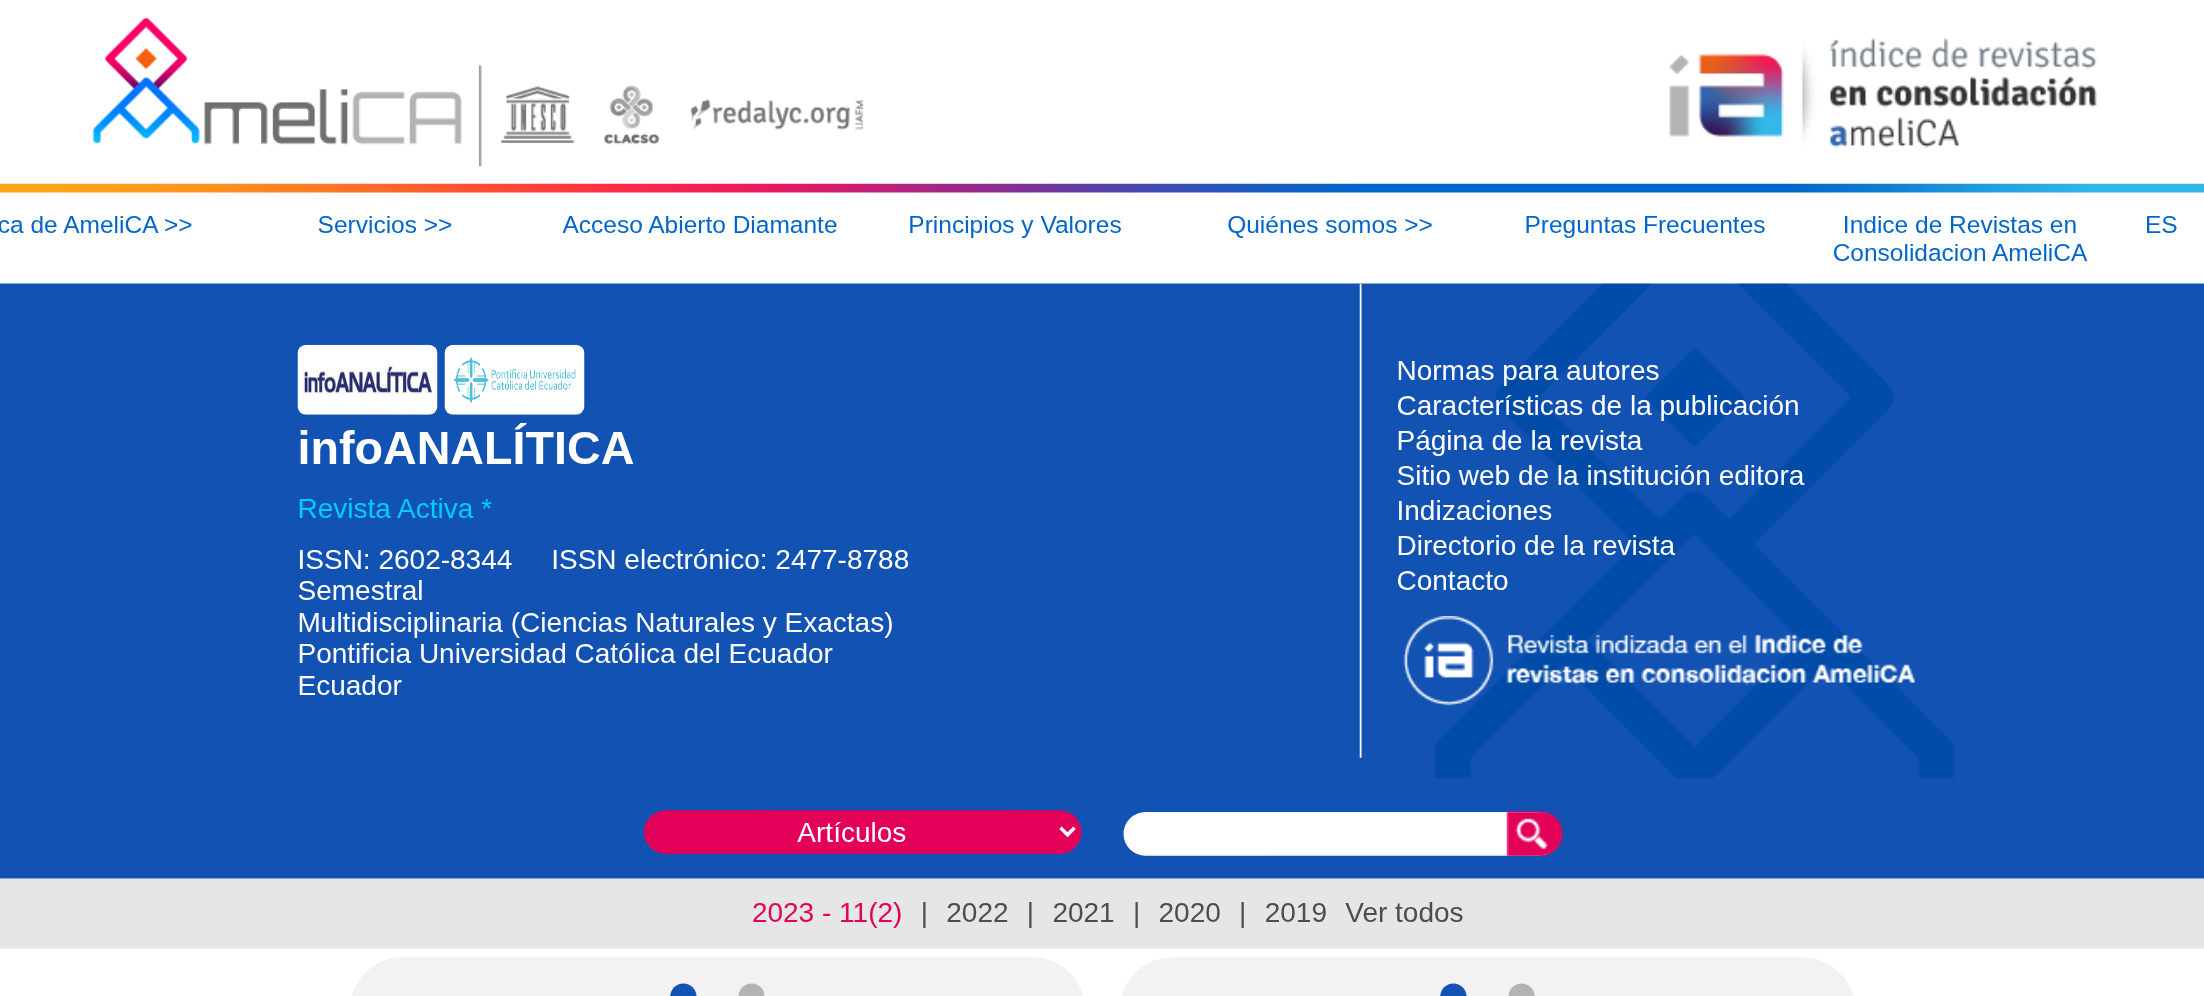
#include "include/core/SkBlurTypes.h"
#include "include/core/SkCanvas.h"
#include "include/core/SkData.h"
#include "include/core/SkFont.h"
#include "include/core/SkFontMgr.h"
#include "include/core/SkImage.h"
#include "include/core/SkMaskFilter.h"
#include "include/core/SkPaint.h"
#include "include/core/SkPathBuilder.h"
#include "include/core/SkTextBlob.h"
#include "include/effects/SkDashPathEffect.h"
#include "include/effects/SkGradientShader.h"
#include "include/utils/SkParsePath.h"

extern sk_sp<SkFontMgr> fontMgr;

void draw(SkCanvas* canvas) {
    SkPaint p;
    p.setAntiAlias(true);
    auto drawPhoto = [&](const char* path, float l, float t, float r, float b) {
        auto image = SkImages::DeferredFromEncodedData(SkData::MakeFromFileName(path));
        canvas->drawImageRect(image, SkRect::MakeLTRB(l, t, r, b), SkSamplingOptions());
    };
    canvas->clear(0xFFFFFFFF);
    drawPhoto("media/1.png", 92, 17, 863, 167);
    drawPhoto("media/2.png", 1669, 38, 2097, 148);
    drawPhoto("media/3.png", 0, 183, 2204, 193);
    drawPhoto("media/4.png", 0, 216, 2204, 996);
}
